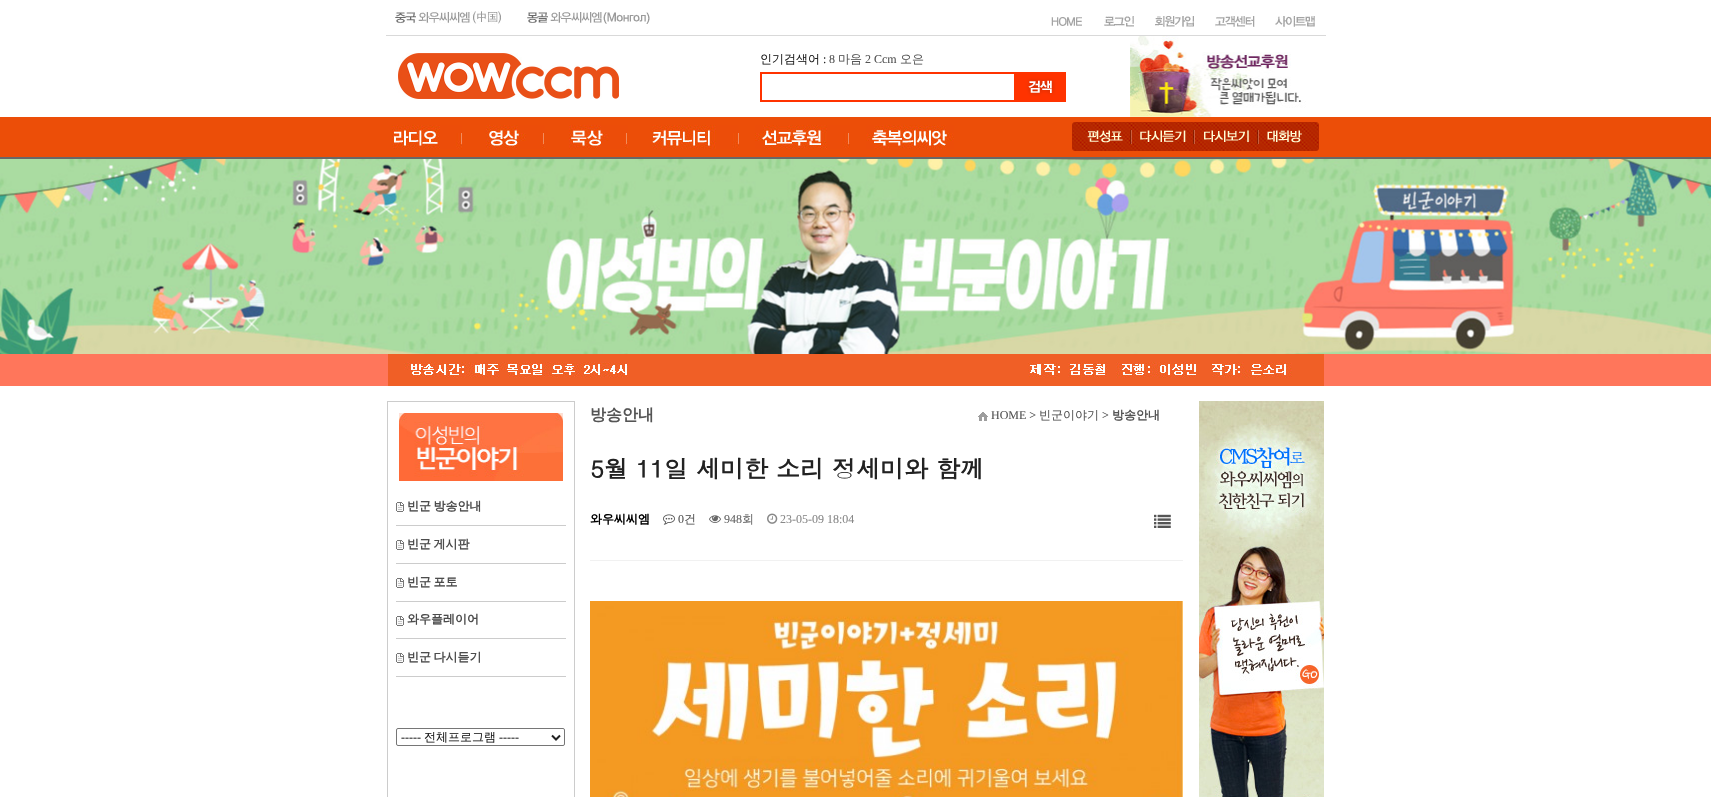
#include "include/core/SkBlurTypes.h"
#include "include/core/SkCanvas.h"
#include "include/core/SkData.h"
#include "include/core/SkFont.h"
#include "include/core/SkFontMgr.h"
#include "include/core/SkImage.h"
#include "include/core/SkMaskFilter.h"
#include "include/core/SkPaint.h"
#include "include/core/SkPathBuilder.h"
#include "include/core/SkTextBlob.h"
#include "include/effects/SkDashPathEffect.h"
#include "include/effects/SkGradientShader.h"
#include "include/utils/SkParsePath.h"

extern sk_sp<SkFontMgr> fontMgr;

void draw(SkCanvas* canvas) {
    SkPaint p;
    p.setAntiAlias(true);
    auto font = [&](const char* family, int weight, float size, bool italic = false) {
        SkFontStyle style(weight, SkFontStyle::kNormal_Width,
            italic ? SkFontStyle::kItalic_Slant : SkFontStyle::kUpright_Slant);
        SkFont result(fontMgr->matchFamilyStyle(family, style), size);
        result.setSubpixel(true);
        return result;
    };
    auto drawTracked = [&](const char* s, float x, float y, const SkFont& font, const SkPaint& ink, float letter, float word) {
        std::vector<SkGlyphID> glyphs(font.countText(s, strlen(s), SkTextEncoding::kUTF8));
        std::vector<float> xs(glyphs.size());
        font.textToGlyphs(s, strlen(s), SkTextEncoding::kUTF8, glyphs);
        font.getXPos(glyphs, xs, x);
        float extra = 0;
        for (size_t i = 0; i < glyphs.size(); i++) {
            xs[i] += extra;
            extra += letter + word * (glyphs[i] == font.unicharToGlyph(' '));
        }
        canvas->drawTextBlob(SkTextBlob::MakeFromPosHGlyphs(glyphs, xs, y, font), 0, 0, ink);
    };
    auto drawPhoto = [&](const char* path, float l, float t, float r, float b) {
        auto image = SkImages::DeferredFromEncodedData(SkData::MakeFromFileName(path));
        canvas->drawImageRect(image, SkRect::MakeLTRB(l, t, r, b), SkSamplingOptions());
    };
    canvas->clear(0xFFFFFFFF);
    drawPhoto("media/1.png", 395, 11, 501, 24);
    drawPhoto("media/2.png", 527, 12, 650, 24);
    p.setColor(0xFFD9D9D9);
    canvas->drawRect(SkRect::MakeLTRB(386, 35, 1326, 36), p);
    drawPhoto("media/3.png", 1051, 17, 1082, 26);
    drawPhoto("media/4.png", 1104, 16, 1134, 27);
    drawPhoto("media/5.png", 1155, 16, 1194, 27);
    drawPhoto("media/6.png", 1215, 16, 1255, 27);
    drawPhoto("media/7.png", 1275, 16, 1315, 27);
    drawPhoto("media/8.png", 398, 53, 619, 99);
    auto font1 = font("WenQuanYi Zen Hei", 500, 12);
    p.setColor(0xFF222222);
    canvas->drawString("인기검색어", 760, 63, font1, p);
    auto font2 = font("Liberation Serif", 400, 12);
    canvas->drawString(":", 823, 63, font2, p);
    p.setColor(0xFF555555);
    canvas->drawString("8", 829, 63, font2, p);
    canvas->drawString("마음", 838, 63, font1, p);
    canvas->drawString("2 Ccm", 865, 63, font2, p);
    canvas->drawString("오은", 900, 63, font1, p);
    p.setStyle(SkPaint::kStroke_Style);
    p.setStrokeWidth(1);
    p.setColor(0xFFFF3300);
    canvas->drawRect(SkRect::MakeLTRB(760.5f, 72.5f, 1015.5f, 101.5f), p);
    canvas->drawRect(SkRect::MakeLTRB(761.5f, 73.5f, 1014.5f, 100.5f), p);
    drawPhoto("media/9.png", 1016, 72, 1066, 102);
    drawPhoto("media/10.png", 1130, 36, 1306, 117);
    drawPhoto("media/11.png", 0, 117, 1711, 159);
    drawPhoto("media/12.png", 392, 125, 462, 149);
    drawPhoto("media/13.png", 486, 125, 545, 149);
    drawPhoto("media/14.png", 569, 125, 628, 149);
    drawPhoto("media/15.png", 652, 125, 739, 149);
    drawPhoto("media/16.png", 755, 125, 850, 149);
    drawPhoto("media/17.png", 866, 125, 954, 149);
    drawPhoto("media/18.png", 1072, 122, 1131, 151);
    drawPhoto("media/19.png", 1131, 122, 1195, 151);
    drawPhoto("media/20.png", 1195, 122, 1259, 151);
    drawPhoto("media/21.png", 1259, 122, 1319, 151);
    drawPhoto("media/22.png", 0, 159, 1711, 354);
    p.setStyle(SkPaint::kFill_Style);
    p.setColor(0xFFFF765B);
    canvas->drawRect(SkRect::MakeLTRB(0, 354, 1711, 386), p);
    drawPhoto("media/23.png", 388, 354, 1324, 386);
    auto font3 = font("WenQuanYi Zen Hei", 700, 16);
    p.setColor(0xFF555555);
    canvas->drawString("방송안내", 590, 420, font3, p);
    drawPhoto("media/24.png", 978, 412, 988, 421);
    canvas->drawString("HOME >", 991, 419, font2, p);
    canvas->drawString("빈군이야기", 1039, 419, font1, p);
    canvas->drawString(">", 1102, 419, font2, p);
    auto font4 = font("WenQuanYi Zen Hei", 700, 12);
    canvas->drawString("방송안내", 1112, 419, font4, p);
    auto font5 = font("Dotum", 700, 24);
    p.setColor(0xFF222222);
    canvas->drawString("5월 11일 세미한 소리 정세미와 함께", 590, 478, font5, p);
    p.setColor(0xFFF1F1F1);
    canvas->drawRect(SkRect::MakeLTRB(590, 560, 1183, 561), p);
    p.setColor(0xFF000000);
    canvas->drawString("와우씨씨엠", 590, 523, font4, p);
    drawPhoto("media/25.png", 663, 514, 675, 525);
    p.setColor(0xFF555555);
    canvas->drawString("0", 678, 523, font2, p);
    canvas->drawString("건", 684, 523, font1, p);
    drawPhoto("media/26.png", 709, 515, 721, 523);
    p.setColor(0xFF666666);
    canvas->drawString("948", 724, 523, font2, p);
    canvas->drawString("회", 742, 523, font1, p);
    drawPhoto("media/27.png", 767, 513, 778, 524);
    p.setColor(0xFF888888);
    canvas->drawString("23-05-09 18:04", 780, 523, font2, p);
    drawPhoto("media/28.png", 1154, 514, 1171, 528);
    drawPhoto("media/29.png", 590, 601, 1183, 797);
    drawPhoto("media/30.png", 1199, 401, 1324, 797);
    {
        const struct { float l, t, r, b; SkColor color; } items[] = {
            {387, 401, 575, 402, 0xFFCCCCCC},
            {574, 481, 575, 797, 0xFFCCCCCC},
            {574, 401, 575, 482, 0xFFCCCCCC},
            {387, 481, 388, 797, 0xFFCCCCCC},
            {387, 401, 388, 482, 0xFFCCCCCC},
        };
        for (auto [l, t, r, b, color] : items) {
            p.setColor(color);
            canvas->drawRect(SkRect::MakeLTRB(l, t, r, b), p);
        }
    }
    drawPhoto("media/31.png", 399, 413, 563, 481);
    canvas->drawRect(SkRect::MakeLTRB(396, 525, 566, 526), p);
    drawPhoto("media/32.png", 396, 502, 404, 512);
    p.setColor(0xFF4C4C4C);
    drawTracked("빈군 방송안내", 407, 510, font4, p, 0, -1);
    p.setColor(0xFFCCCCCC);
    canvas->drawRect(SkRect::MakeLTRB(396, 563, 566, 564), p);
    drawPhoto("media/32.png", 396, 540, 404, 550);
    p.setColor(0xFF4C4C4C);
    drawTracked("빈군 게시판", 407, 548, font4, p, 0, -1);
    p.setColor(0xFFCCCCCC);
    canvas->drawRect(SkRect::MakeLTRB(396, 601, 566, 602), p);
    drawPhoto("media/32.png", 396, 578, 404, 588);
    p.setColor(0xFF4C4C4C);
    drawTracked("빈군 포토", 407, 586, font4, p, 0, -1);
    p.setColor(0xFFCCCCCC);
    canvas->drawRect(SkRect::MakeLTRB(396, 638, 566, 639), p);
    drawPhoto("media/32.png", 396, 616, 404, 626);
    p.setColor(0xFF4C4C4C);
    canvas->drawString("와우플레이어", 407, 623, font4, p);
    p.setColor(0xFFCCCCCC);
    canvas->drawRect(SkRect::MakeLTRB(396, 676, 566, 677), p);
    drawPhoto("media/32.png", 396, 653, 404, 663);
    p.setColor(0xFF4C4C4C);
    drawTracked("빈군 다시듣기", 407, 661, font4, p, 0, -1);
    p.setStyle(SkPaint::kStroke_Style);
    p.setColor(0xFF767676);
    canvas->drawRoundRect(SkRect::MakeLTRB(396.5f, 728.5f, 564.5f, 745.5f), 1.5f, 1.5f, p);
    p.setStrokeWidth(2);
    p.setColor(0xFF222222);
    canvas->drawPath(SkPathBuilder().moveTo(552, 735.5f).lineTo(556, 739.5f).lineTo(560, 735.5f).detach(), p);
    p.setStyle(SkPaint::kFill_Style);
    canvas->drawString("-----", 401, 741, font2, p);
    canvas->drawString("전체프로그램", 424, 741, font1, p);
    canvas->drawString("-----", 499, 741, font2, p);
}
